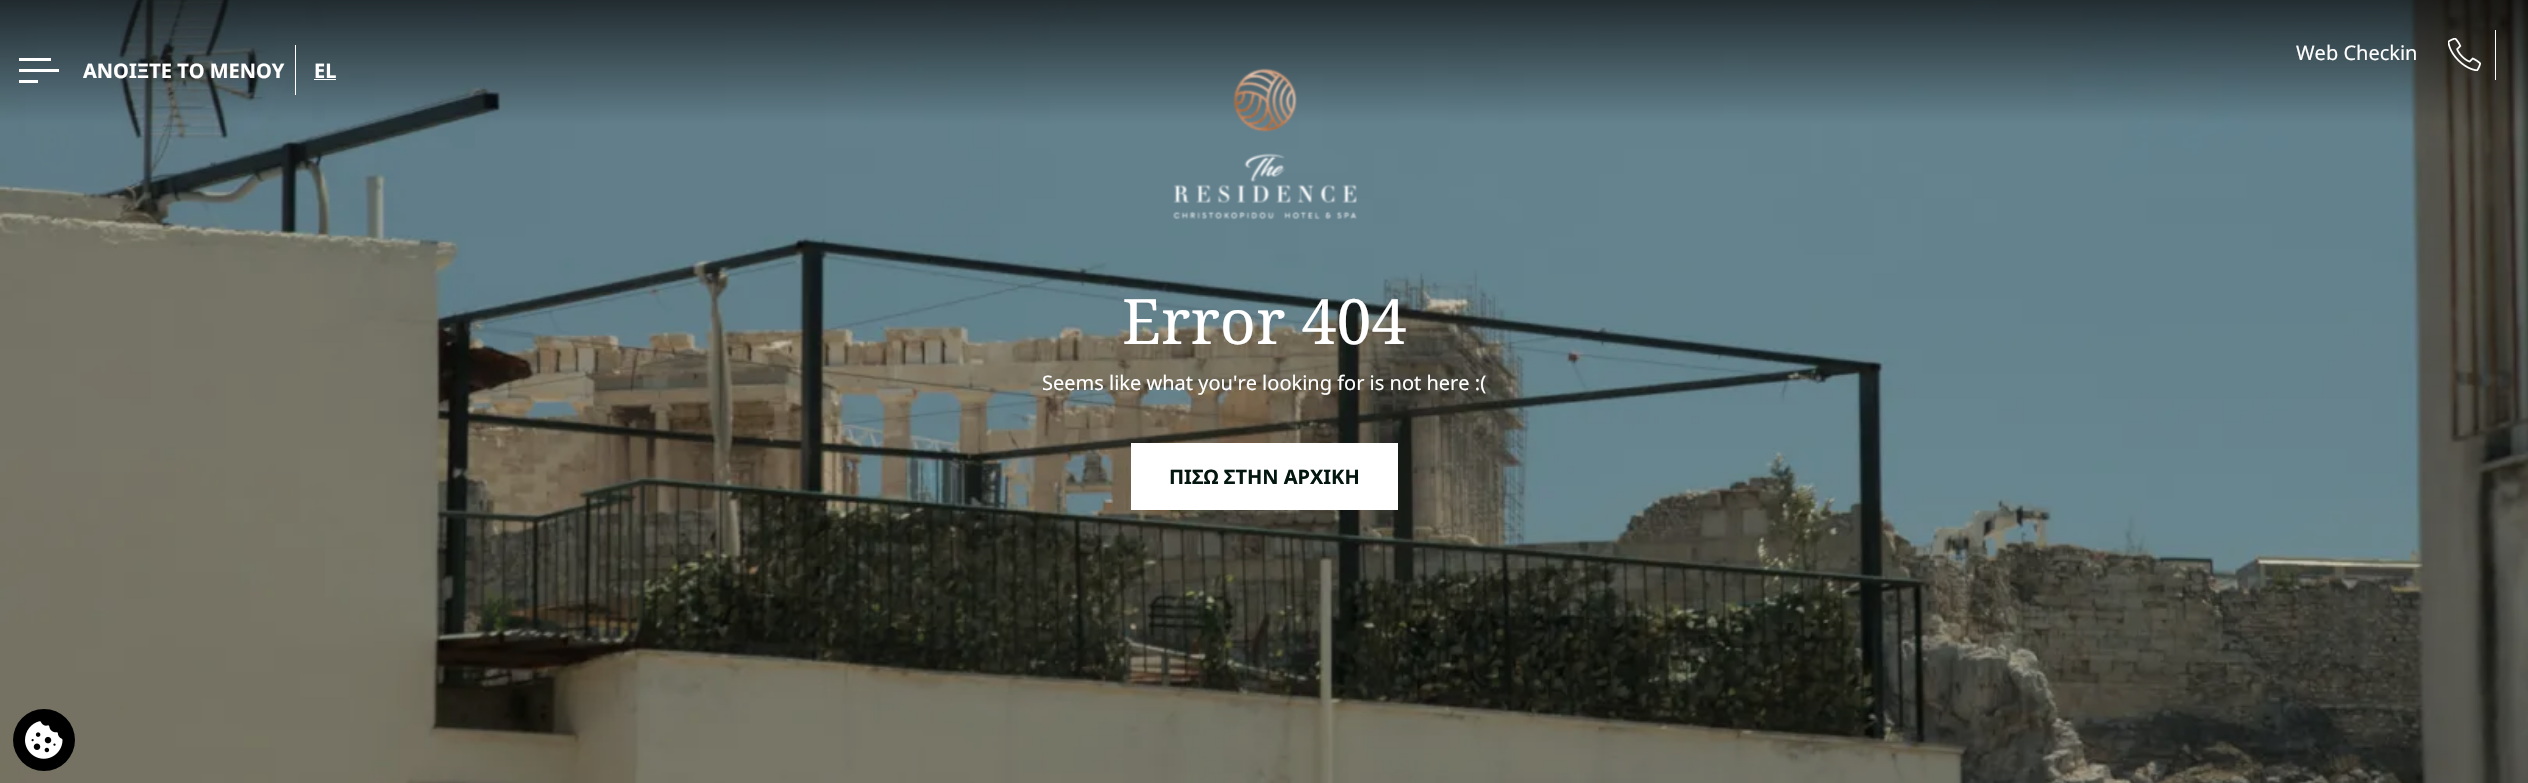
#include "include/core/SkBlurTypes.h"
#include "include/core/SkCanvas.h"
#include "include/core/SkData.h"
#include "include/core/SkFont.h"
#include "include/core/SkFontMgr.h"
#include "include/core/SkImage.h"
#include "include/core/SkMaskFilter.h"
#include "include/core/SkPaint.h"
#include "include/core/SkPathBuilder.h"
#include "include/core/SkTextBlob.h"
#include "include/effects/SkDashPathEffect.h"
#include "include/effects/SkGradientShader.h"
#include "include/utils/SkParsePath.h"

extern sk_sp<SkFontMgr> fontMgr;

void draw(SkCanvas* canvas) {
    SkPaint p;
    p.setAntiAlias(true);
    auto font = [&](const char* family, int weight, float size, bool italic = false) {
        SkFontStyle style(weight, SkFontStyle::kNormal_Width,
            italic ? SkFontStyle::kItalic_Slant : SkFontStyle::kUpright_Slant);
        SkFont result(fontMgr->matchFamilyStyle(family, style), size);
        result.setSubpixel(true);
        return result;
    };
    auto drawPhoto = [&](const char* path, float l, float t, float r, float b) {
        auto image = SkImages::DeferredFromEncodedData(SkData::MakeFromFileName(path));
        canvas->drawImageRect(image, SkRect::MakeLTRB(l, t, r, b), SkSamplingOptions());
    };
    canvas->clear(0xFFFFFFFF);
    drawPhoto("media/3.png", 0, 0, 2528, 783);
    auto font1 = font("Noto Sans", 400, 20);
    p.setColor(0xFFFFFFFF);
    canvas->drawString("Web Checkin", 2296, 60, font1, p);
    drawPhoto("media/1.png", 2448, 38, 2481, 71);
    {
        const struct { float l, t, r, b; SkColor color; } items[] = {
            {2495, 30, 2496, 80, 0xFFFFFFFF},
            {19, 69, 59, 72, 0xFFFFFFFF},
            {19, 58, 51, 61, 0xFFFFFFFF},
            {19, 80, 38, 83, 0xFFFFFFFF},
        };
        for (auto [l, t, r, b, color] : items) {
            p.setColor(color);
            canvas->drawRect(SkRect::MakeLTRB(l, t, r, b), p);
        }
    }
    auto font2 = font("Noto Sans", 700, 20);
    canvas->drawString("ΑΝΟΙΞΤΕ ΤΟ ΜΕΝΟΥ", 83, 78, font2, p);
    canvas->drawRect(SkRect::MakeLTRB(295, 45, 296, 95), p);
    canvas->drawString("EL", 314, 78, font2, p);
    canvas->drawRect(SkRect::MakeLTRB(314, 79, 336, 80), p);
    drawPhoto("media/2.png", 1173, 68, 1357, 220);
    auto font3 = font("Noto Serif", 400, 62.5f);
    canvas->drawString("Error 404", 1122, 344, font3, p);
    canvas->drawString("Seems like what you're looking for is not here :(", 1042, 390, font1, p);
    canvas->drawRect(SkRect::MakeLTRB(1131, 443, 1398, 510), p);
    p.setColor(0xFF03160F);
    canvas->drawString("ΠΙΣΩ ΣΤΗΝ ΑΡΧΙΚΗ", 1169, 484, font2, p);
    p.setColor(0xFF000000);
    canvas->drawCircle(44, 740, 31, p);
    drawPhoto("media/4.png", 25, 721, 63, 759);
}
